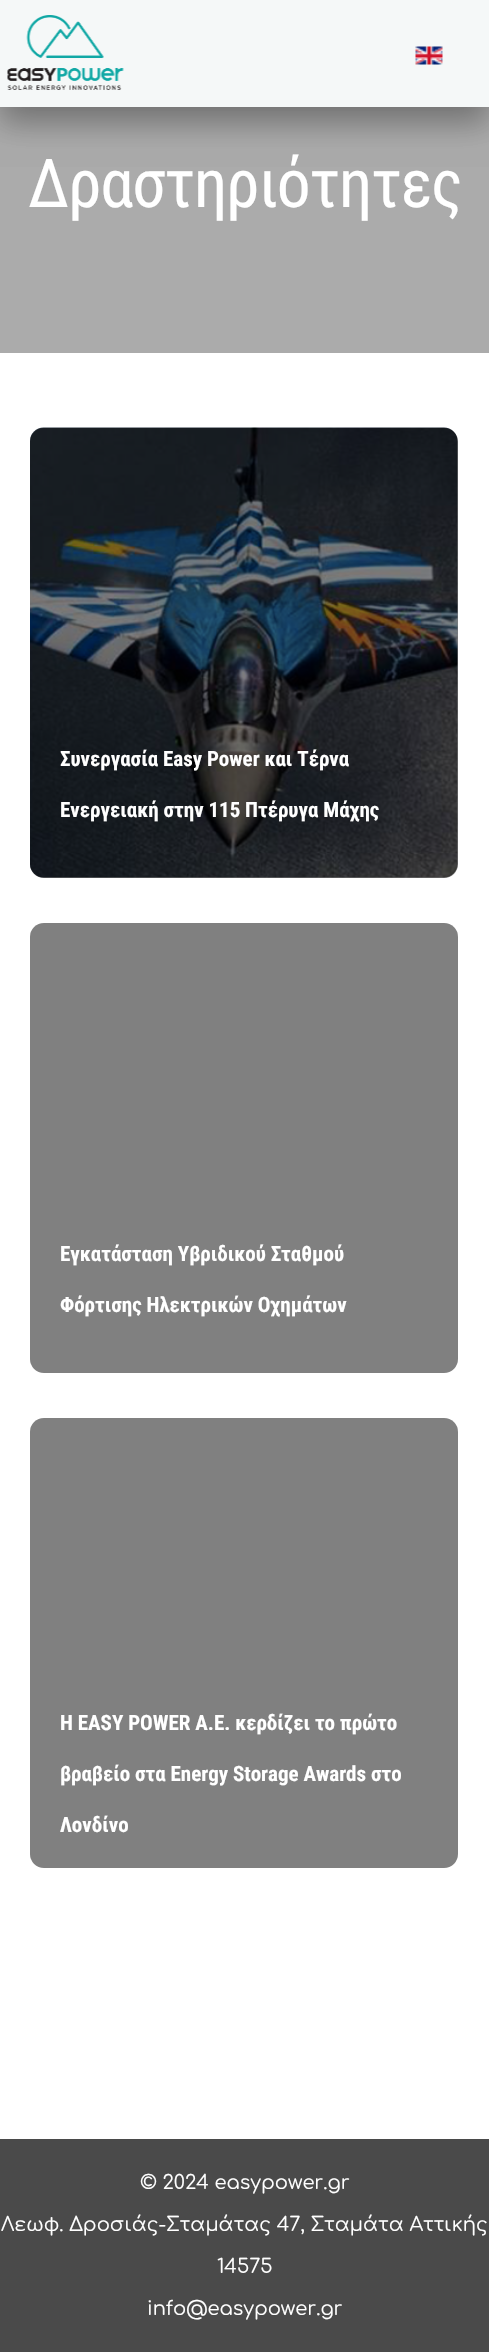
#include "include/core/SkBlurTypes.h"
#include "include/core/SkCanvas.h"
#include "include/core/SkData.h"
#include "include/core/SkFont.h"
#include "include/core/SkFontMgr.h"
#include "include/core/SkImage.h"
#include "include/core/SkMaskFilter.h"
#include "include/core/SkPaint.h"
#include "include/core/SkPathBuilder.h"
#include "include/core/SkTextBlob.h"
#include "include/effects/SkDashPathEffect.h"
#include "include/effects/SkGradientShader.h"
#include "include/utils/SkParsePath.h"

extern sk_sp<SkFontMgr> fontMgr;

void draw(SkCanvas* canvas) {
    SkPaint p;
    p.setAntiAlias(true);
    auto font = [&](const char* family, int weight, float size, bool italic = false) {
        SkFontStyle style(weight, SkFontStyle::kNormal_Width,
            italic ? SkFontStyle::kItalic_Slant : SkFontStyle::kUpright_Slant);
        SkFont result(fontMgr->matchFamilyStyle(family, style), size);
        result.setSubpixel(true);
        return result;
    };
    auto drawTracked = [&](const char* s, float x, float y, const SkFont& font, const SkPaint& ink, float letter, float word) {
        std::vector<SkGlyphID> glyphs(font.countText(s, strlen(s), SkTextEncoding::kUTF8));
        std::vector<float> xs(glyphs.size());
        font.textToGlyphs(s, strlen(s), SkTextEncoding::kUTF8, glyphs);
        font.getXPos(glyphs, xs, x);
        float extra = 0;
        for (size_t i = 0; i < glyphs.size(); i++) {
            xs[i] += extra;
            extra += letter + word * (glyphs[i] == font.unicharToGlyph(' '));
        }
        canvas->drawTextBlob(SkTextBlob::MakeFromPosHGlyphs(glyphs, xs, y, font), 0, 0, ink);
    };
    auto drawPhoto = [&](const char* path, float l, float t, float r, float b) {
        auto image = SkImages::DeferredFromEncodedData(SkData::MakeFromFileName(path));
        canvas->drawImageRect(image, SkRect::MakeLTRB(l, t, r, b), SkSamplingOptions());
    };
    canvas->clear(0xFFFFFFFF);
    p.setColor(0xFFABABAB);
    canvas->drawRect(SkRect::MakeLTRB(0, 107, 489, 353), p);
    p.setColor(0x38000000);
    p.setMaskFilter(SkMaskFilter::MakeBlur(kNormal_SkBlurStyle, 15));
    canvas->drawRect(SkRect::MakeLTRB(0, 15, 489, 122), p);
    p.setMaskFilter(nullptr);
    p.setColor(0x26000000);
    p.setMaskFilter(SkMaskFilter::MakeBlur(kNormal_SkBlurStyle, 15));
    canvas->drawRect(SkRect::MakeLTRB(0, 15, 489, 122), p);
    p.setMaskFilter(nullptr);
    p.setColor(0xFFF5F8F8);
    canvas->drawRect(SkRect::MakeLTRB(0, 0, 489, 107), p);
    drawPhoto("media/1.png", 7, 15, 124, 90);
    drawPhoto("media/2.png", 415, 46, 443, 65);
    auto font1 = font("Roboto Condensed", 400, 67.5f);
    p.setColor(0xFFFFFFFF);
    drawTracked("Δραστηριότητες", 28, 207, font1, p, -1.5f, 0);
    drawPhoto("media/3.png", 30, 427, 458, 878);
    p.setColor(0x80000000);
    canvas->drawRoundRect(SkRect::MakeLTRB(30, 428, 458, 878), 14, 14, p);
    auto font2 = font("Roboto Condensed", 700, 21);
    p.setColor(0xFFFFFFFF);
    canvas->drawString("Συνεργασία Easy Power και Τέρνα", 60, 766, font2, p);
    canvas->drawString("Ενεργειακή στην 115 Πτέρυγα Μάχης", 60, 817, font2, p);
    p.setColor(0xFF808080);
    canvas->drawRoundRect(SkRect::MakeLTRB(30, 923, 458, 1373), 14, 14, p);
    p.setColor(0xFFFFFFFF);
    canvas->drawString("Εγκατάσταση Υβριδικού Σταθμού", 60, 1261, font2, p);
    canvas->drawString("Φόρτισης Ηλεκτρικών Οχημάτων", 60, 1312, font2, p);
    p.setColor(0xFF808080);
    canvas->drawRoundRect(SkRect::MakeLTRB(30, 1418, 458, 1868), 14, 14, p);
    p.setColor(0xFFFFFFFF);
    {
        const struct { const char* s; float x, y; } items[] = {
            {"H EASY POWER A.E. κερδίζει το πρώτο", 60, 1730},
            {"βραβείο στα Energy Storage Awards στο", 60, 1781},
            {"Λονδίνο", 60, 1832},
        };
        for (auto [s, x, y] : items) {
            canvas->drawString(s, x, y, font2, p);
        }
    }
    p.setColor(0xFF4A4A4A);
    canvas->drawRect(SkRect::MakeLTRB(0, 2139, 489, 2352), p);
    auto font3 = font("Comfortaa", 400, 19.5f);
    p.setColor(0xFFFFFFFF);
    {
        const struct { const char* s; float x, y; } items[] = {
            {"© 2024 easypower.gr", 140, 2189},
            {"Λεωφ. Δροσιάς-Σταμάτας 47, Σταμάτα Αττικής", 1, 2231},
            {"14575", 217, 2273},
            {"info@easypower.gr", 147, 2315},
        };
        for (auto [s, x, y] : items) {
            canvas->drawString(s, x, y, font3, p);
        }
    }
}
